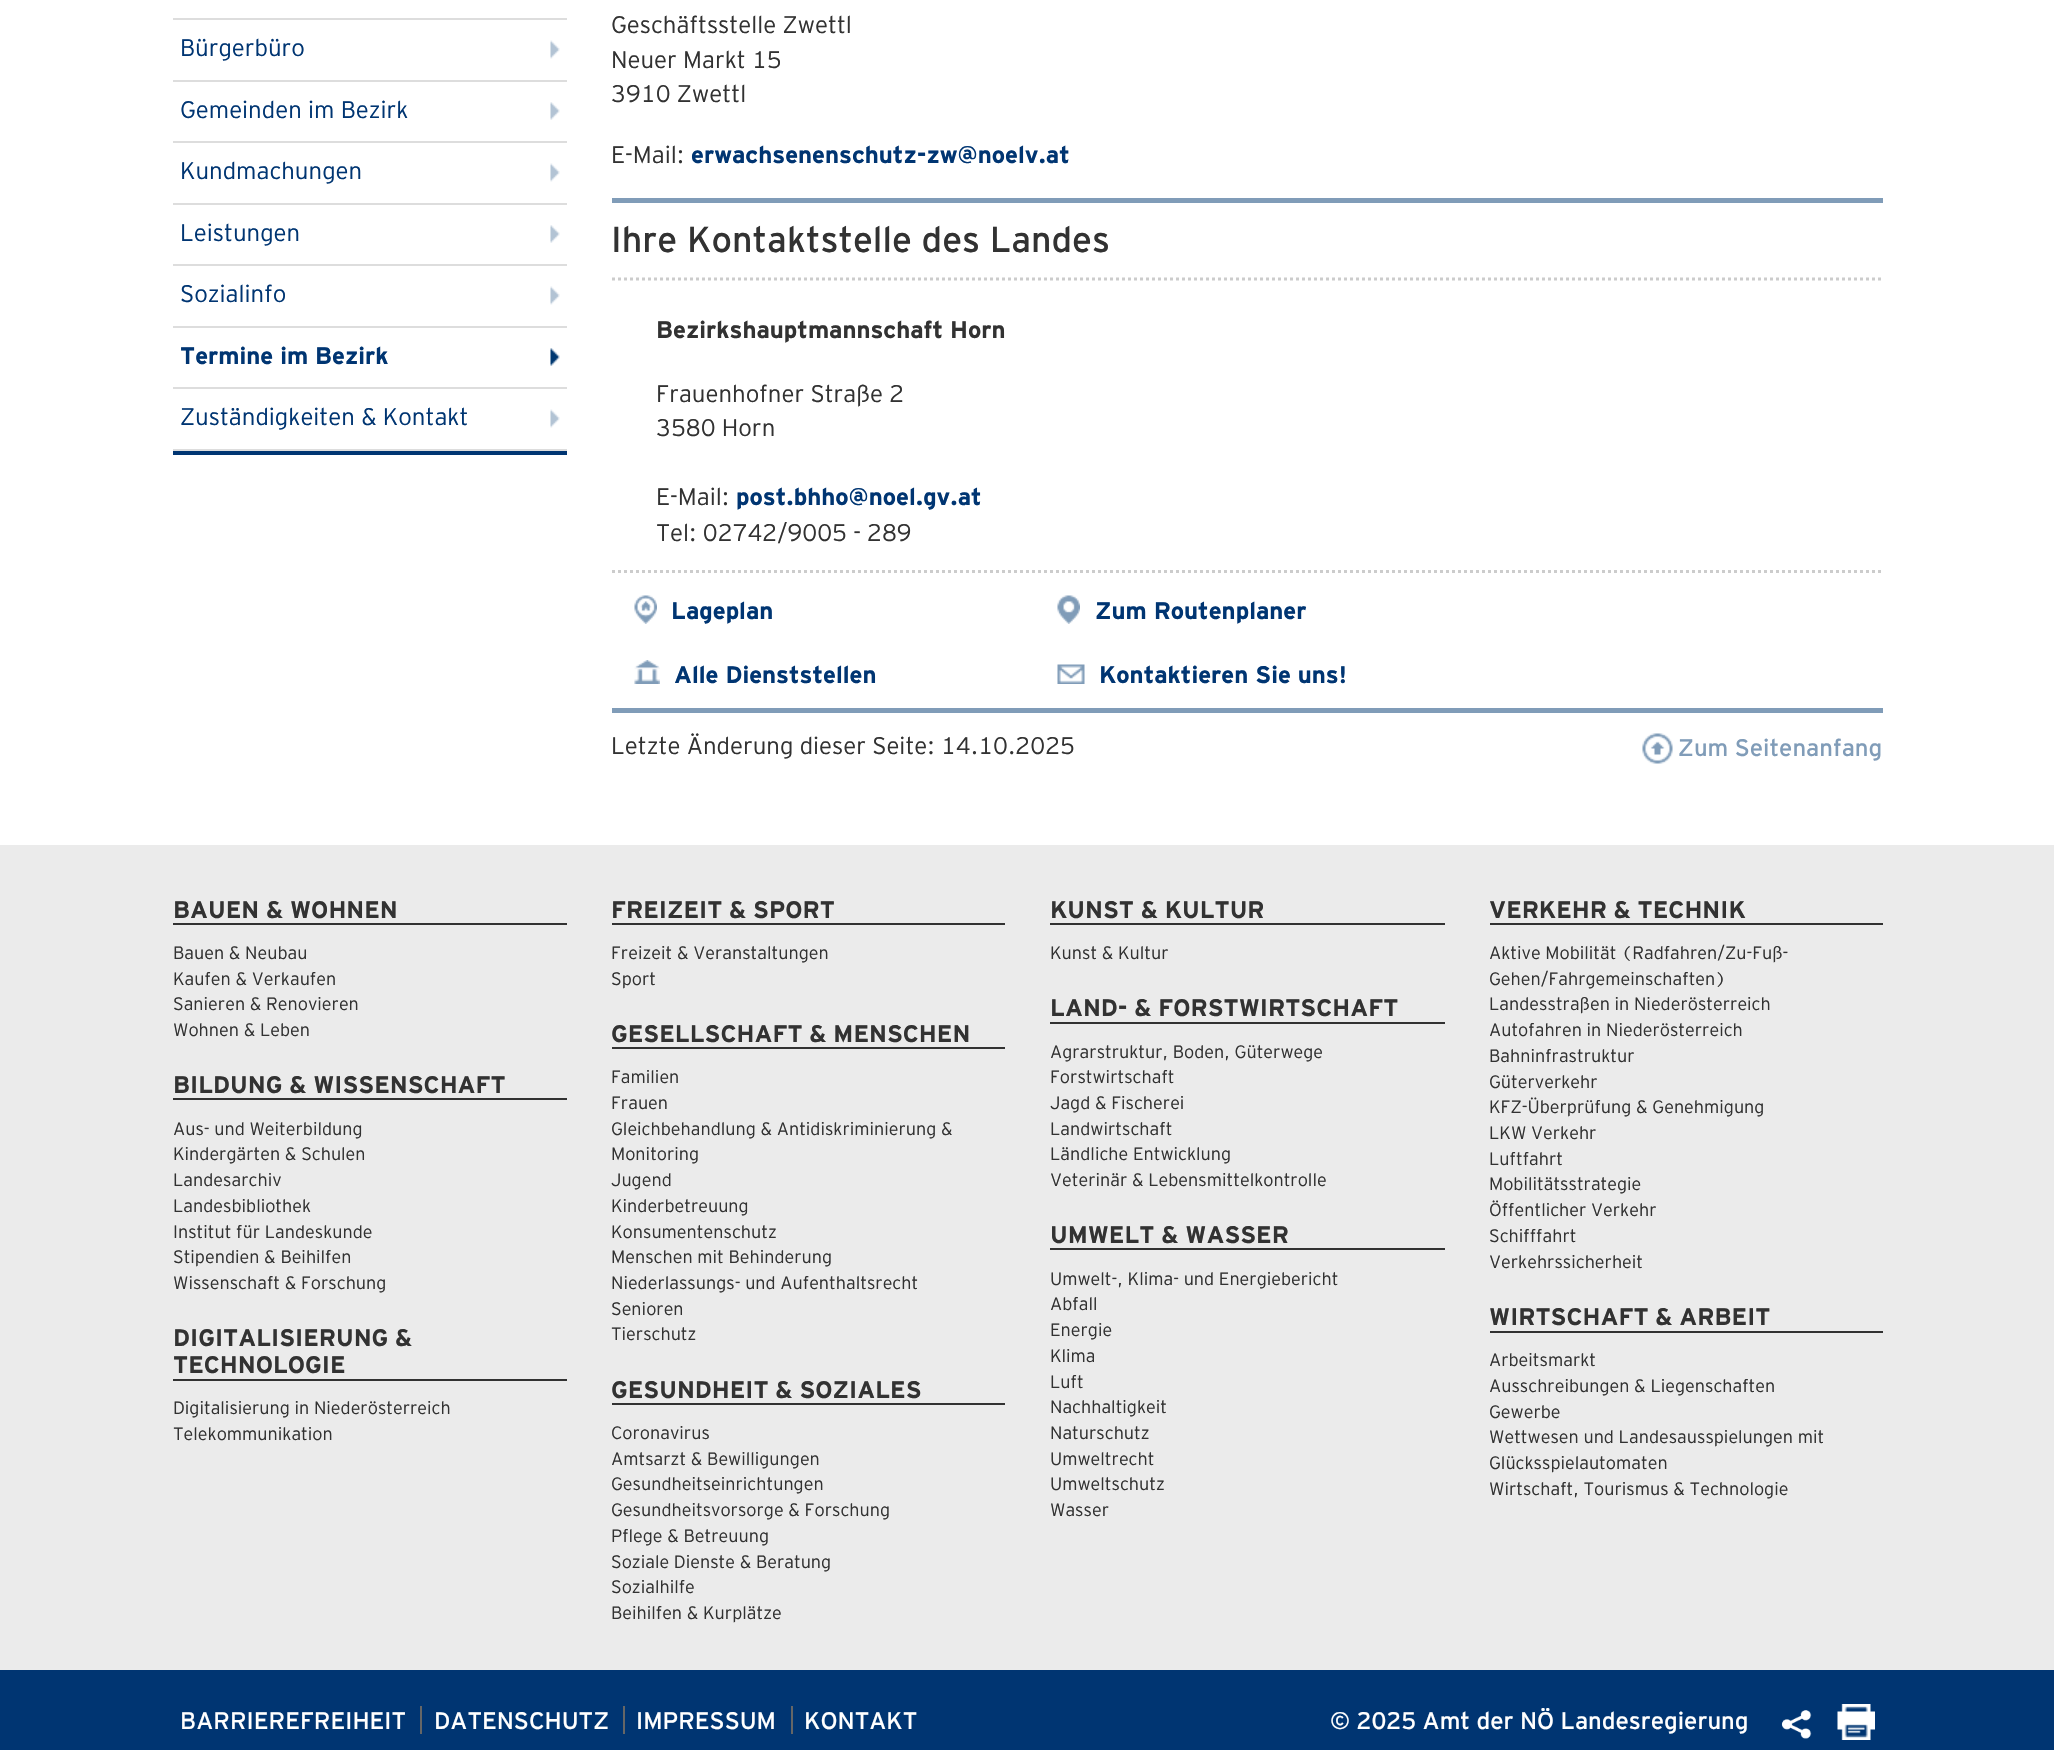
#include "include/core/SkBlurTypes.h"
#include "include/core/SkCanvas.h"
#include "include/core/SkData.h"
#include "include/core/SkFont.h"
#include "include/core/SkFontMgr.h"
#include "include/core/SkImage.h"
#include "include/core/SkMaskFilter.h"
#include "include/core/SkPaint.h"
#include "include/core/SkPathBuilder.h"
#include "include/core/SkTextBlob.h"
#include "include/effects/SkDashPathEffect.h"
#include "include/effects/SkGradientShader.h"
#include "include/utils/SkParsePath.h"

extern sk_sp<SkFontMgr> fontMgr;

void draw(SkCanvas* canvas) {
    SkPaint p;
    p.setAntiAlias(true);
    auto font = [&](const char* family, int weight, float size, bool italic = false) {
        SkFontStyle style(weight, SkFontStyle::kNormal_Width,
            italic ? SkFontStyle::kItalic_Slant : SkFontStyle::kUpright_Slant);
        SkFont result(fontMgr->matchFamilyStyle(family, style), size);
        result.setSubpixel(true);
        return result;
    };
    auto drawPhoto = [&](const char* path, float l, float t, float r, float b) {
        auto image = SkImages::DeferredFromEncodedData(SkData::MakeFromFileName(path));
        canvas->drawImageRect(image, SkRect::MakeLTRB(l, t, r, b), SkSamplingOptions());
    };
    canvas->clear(0xFFFFFFFF);
    {
        const struct { float l, t, r, b; SkColor color; } items[] = {
            {173, 451, 567, 455, 0xFF003572},
            {173, 18, 567, 20, 0xFFDDDDDD},
            {173, 80, 567, 82, 0xFFDDDDDD},
        };
        for (auto [l, t, r, b, color] : items) {
            p.setColor(color);
            canvas->drawRect(SkRect::MakeLTRB(l, t, r, b), p);
        }
    }
    auto font1 = font("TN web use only", 300, 24);
    p.setColor(0xFF003572);
    canvas->drawString("Bürgerbüro", 180, 56, font1, p);
    drawPhoto("media/1.png", 550, 40, 560, 59);
    p.setColor(0xFFDDDDDD);
    canvas->drawRect(SkRect::MakeLTRB(173, 141, 567, 143), p);
    p.setColor(0xFF003572);
    canvas->drawString("Gemeinden im Bezirk", 180, 118, font1, p);
    drawPhoto("media/2.png", 550, 102, 560, 120);
    p.setColor(0xFFDDDDDD);
    canvas->drawRect(SkRect::MakeLTRB(173, 203, 567, 205), p);
    p.setColor(0xFF003572);
    canvas->drawString("Kundmachungen", 180, 179, font1, p);
    drawPhoto("media/1.png", 550, 163, 560, 182);
    p.setColor(0xFFDDDDDD);
    canvas->drawRect(SkRect::MakeLTRB(173, 264, 567, 266), p);
    p.setColor(0xFF003572);
    canvas->drawString("Leistungen", 180, 241, font1, p);
    drawPhoto("media/2.png", 550, 225, 560, 243);
    p.setColor(0xFFDDDDDD);
    canvas->drawRect(SkRect::MakeLTRB(173, 326, 567, 328), p);
    p.setColor(0xFF003572);
    canvas->drawString("Sozialinfo", 180, 302, font1, p);
    drawPhoto("media/1.png", 550, 286, 560, 305);
    p.setColor(0xFFDDDDDD);
    canvas->drawRect(SkRect::MakeLTRB(173, 387, 567, 389), p);
    auto font2 = font("TN web use only", 700, 24);
    p.setColor(0xFF003572);
    canvas->drawString("Termine im Bezirk", 180, 364, font2, p);
    drawPhoto("media/3.png", 550, 348, 560, 366);
    p.setColor(0xFFDDDDDD);
    canvas->drawRect(SkRect::MakeLTRB(173, 449, 567, 451), p);
    p.setColor(0xFF003572);
    canvas->drawString("Zuständigkeiten & Kontakt", 180, 425, font1, p);
    drawPhoto("media/1.png", 550, 409, 560, 428);
    p.setColor(0xFF323232);
    {
        const struct { const char* s; float x, y; } items[] = {
            {"Geschäftsstelle Zwettl", 611, 33},
            {"Neuer Markt 15", 611, 68},
            {"3910 Zwettl", 611, 102},
            {"E-Mail:", 611, 163},
        };
        for (auto [s, x, y] : items) {
            canvas->drawString(s, x, y, font1, p);
        }
    }
    p.setColor(0xFF003572);
    canvas->drawString("erwachsenenschutz-zw@noelv.at", 691, 163, font2, p);
    p.setColor(0xFF809CB8);
    canvas->drawRect(SkRect::MakeLTRB(612, 198, 1883, 203), p);
    auto font3 = font("TN web use only", 400, 36);
    p.setColor(0xFF323232);
    canvas->drawString("Ihre Kontaktstelle des Landes", 611, 252, font3, p);
    p.setStyle(SkPaint::kStroke_Style);
    p.setStrokeWidth(3);
    p.setColor(0xFFCCCCCC);
    p.setPathEffect(SkDashPathEffect::Make({{3, 3}}, 0));
    canvas->drawPath(SkPathBuilder().moveTo(612, 279).lineTo(1882.5f, 279).detach(), p);
    p.setPathEffect(nullptr);
    p.setStyle(SkPaint::kFill_Style);
    p.setColor(0xFF323232);
    canvas->drawString("Bezirkshauptmannschaft Horn", 656, 338, font2, p);
    {
        const struct { const char* s; float x, y; } items[] = {
            {"Frauenhofner Straße 2", 656, 402},
            {"3580 Horn", 656, 436},
            {"E-Mail:", 656, 505},
        };
        for (auto [s, x, y] : items) {
            canvas->drawString(s, x, y, font1, p);
        }
    }
    p.setColor(0xFF003572);
    canvas->drawString("post.bhho@noel.gv.at", 736, 505, font2, p);
    p.setColor(0xFF323232);
    canvas->drawString("Tel: 02742/9005 - 289", 656, 541, font1, p);
    p.setStyle(SkPaint::kStroke_Style);
    p.setColor(0xFFCCCCCC);
    p.setPathEffect(SkDashPathEffect::Make({{3, 3}}, 0));
    canvas->drawPath(SkPathBuilder().moveTo(612, 571.5f).lineTo(1882.5f, 571.5f).detach(), p);
    p.setPathEffect(nullptr);
    drawPhoto("media/4.png", 634, 595, 657, 624);
    p.setStyle(SkPaint::kFill_Style);
    p.setColor(0xFF003572);
    canvas->drawString("Lageplan", 671, 619, font2, p);
    drawPhoto("media/5.png", 1057, 595, 1080, 624);
    canvas->drawString("Zum Routenplaner", 1095, 619, font2, p);
    drawPhoto("media/6.png", 634, 660, 660, 684);
    canvas->drawString("Alle Dienststellen", 674, 683, font2, p);
    drawPhoto("media/7.png", 1057, 664, 1085, 684);
    canvas->drawString("Kontaktieren Sie uns!", 1099, 683, font2, p);
    p.setColor(0xFF809CB8);
    canvas->drawRect(SkRect::MakeLTRB(612, 708, 1883, 713), p);
    p.setColor(0xFF323232);
    canvas->drawString("Letzte Änderung dieser Seite: 14.10.2025", 611, 754, font1, p);
    drawPhoto("media/8.png", 1642, 733, 1673, 764);
    auto font4 = font("TN web use only", 400, 24);
    p.setColor(0xFF809CB8);
    canvas->drawString("Zum Seitenanfang", 1678, 756, font4, p);
    p.setColor(0xFFEBEBEB);
    canvas->drawRect(SkRect::MakeLTRB(0, 845, 2054, 1670), p);
    p.setColor(0xFF323232);
    canvas->drawRect(SkRect::MakeLTRB(173, 923, 567, 925), p);
    canvas->drawString("BAUEN & WOHNEN", 173, 918, font2, p);
    auto font5 = font("TN web use only", 300, 18);
    {
        const struct { const char* s; float x, y; } items[] = {
            {"Bauen & Neubau", 173, 959},
            {"Kaufen & Verkaufen", 173, 985},
            {"Sanieren & Renovieren", 173, 1010},
            {"Wohnen & Leben", 173, 1036},
        };
        for (auto [s, x, y] : items) {
            canvas->drawString(s, x, y, font5, p);
        }
    }
    canvas->drawRect(SkRect::MakeLTRB(173, 1098, 567, 1100), p);
    canvas->drawString("BILDUNG & WISSENSCHAFT", 173, 1093, font2, p);
    {
        const struct { const char* s; float x, y; } items[] = {
            {"Aus- und Weiterbildung", 173, 1135},
            {"Kindergärten & Schulen", 173, 1160},
            {"Landesarchiv", 173, 1186},
            {"Landesbibliothek", 173, 1212},
            {"Institut für Landeskunde", 173, 1238},
            {"Stipendien & Beihilfen", 173, 1263},
            {"Wissenschaft & Forschung", 173, 1289},
        };
        for (auto [s, x, y] : items) {
            canvas->drawString(s, x, y, font5, p);
        }
    }
    canvas->drawRect(SkRect::MakeLTRB(173, 1379, 567, 1381), p);
    canvas->drawString("DIGITALISIERUNG &", 173, 1346, font2, p);
    canvas->drawString("TECHNOLOGIE", 173, 1373, font2, p);
    canvas->drawString("Digitalisierung in Niederösterreich", 173, 1414, font5, p);
    canvas->drawString("Telekommunikation", 173, 1440, font5, p);
    canvas->drawRect(SkRect::MakeLTRB(612, 923, 1005, 925), p);
    canvas->drawString("FREIZEIT & SPORT", 611, 918, font2, p);
    canvas->drawString("Freizeit & Veranstaltungen", 611, 959, font5, p);
    canvas->drawString("Sport", 611, 985, font5, p);
    canvas->drawRect(SkRect::MakeLTRB(612, 1047, 1005, 1049), p);
    canvas->drawString("GESELLSCHAFT & MENSCHEN", 611, 1042, font2, p);
    {
        const struct { const char* s; float x, y; } items[] = {
            {"Familien", 611, 1083},
            {"Frauen", 611, 1109},
            {"Gleichbehandlung & Antidiskriminierung &", 611, 1135},
            {"Monitoring", 611, 1160},
            {"Jugend", 611, 1186},
            {"Kinderbetreuung", 611, 1212},
            {"Konsumentenschutz", 611, 1238},
            {"Menschen mit Behinderung", 611, 1263},
            {"Niederlassungs- und Aufenthaltsrecht", 611, 1289},
            {"Senioren", 611, 1315},
            {"Tierschutz", 611, 1340},
        };
        for (auto [s, x, y] : items) {
            canvas->drawString(s, x, y, font5, p);
        }
    }
    canvas->drawRect(SkRect::MakeLTRB(612, 1403, 1005, 1405), p);
    canvas->drawString("GESUNDHEIT & SOZIALES", 611, 1398, font2, p);
    {
        const struct { const char* s; float x, y; } items[] = {
            {"Coronavirus", 611, 1439},
            {"Amtsarzt & Bewilligungen", 611, 1465},
            {"Gesundheitseinrichtungen", 611, 1490},
            {"Gesundheitsvorsorge & Forschung", 611, 1516},
            {"Pflege & Betreuung", 611, 1542},
            {"Soziale Dienste & Beratung", 611, 1568},
            {"Sozialhilfe", 611, 1593},
            {"Beihilfen & Kurplätze", 611, 1619},
        };
        for (auto [s, x, y] : items) {
            canvas->drawString(s, x, y, font5, p);
        }
    }
    canvas->drawRect(SkRect::MakeLTRB(1050, 923, 1445, 925), p);
    canvas->drawString("KUNST & KULTUR", 1050, 918, font2, p);
    canvas->drawString("Kunst & Kultur", 1050, 959, font5, p);
    canvas->drawRect(SkRect::MakeLTRB(1050, 1022, 1445, 1024), p);
    canvas->drawString("LAND- & FORSTWIRTSCHAFT", 1050, 1016, font2, p);
    {
        const struct { const char* s; float x, y; } items[] = {
            {"Agrarstruktur, Boden, Güterwege", 1050, 1058},
            {"Forstwirtschaft", 1050, 1083},
            {"Jagd & Fischerei", 1050, 1109},
            {"Landwirtschaft", 1050, 1135},
            {"Ländliche Entwicklung", 1050, 1160},
            {"Veterinär & Lebensmittelkontrolle", 1050, 1186},
        };
        for (auto [s, x, y] : items) {
            canvas->drawString(s, x, y, font5, p);
        }
    }
    canvas->drawRect(SkRect::MakeLTRB(1050, 1248, 1445, 1250), p);
    canvas->drawString("UMWELT & WASSER", 1050, 1243, font2, p);
    {
        const struct { const char* s; float x, y; } items[] = {
            {"Umwelt-, Klima- und Energiebericht", 1050, 1285},
            {"Abfall", 1050, 1310},
            {"Energie", 1050, 1336},
            {"Klima", 1050, 1362},
            {"Luft", 1050, 1388},
            {"Nachhaltigkeit", 1050, 1413},
            {"Naturschutz", 1050, 1439},
            {"Umweltrecht", 1050, 1465},
            {"Umweltschutz", 1050, 1490},
            {"Wasser", 1050, 1516},
        };
        for (auto [s, x, y] : items) {
            canvas->drawString(s, x, y, font5, p);
        }
    }
    canvas->drawRect(SkRect::MakeLTRB(1490, 923, 1883, 925), p);
    canvas->drawString("VERKEHR & TECHNIK", 1489, 918, font2, p);
    {
        const struct { const char* s; float x, y; } items[] = {
            {"Aktive Mobilität (Radfahren/Zu-Fuß-", 1489, 959},
            {"Gehen/Fahrgemeinschaften)", 1489, 985},
            {"Landesstraßen in Niederösterreich", 1489, 1010},
            {"Autofahren in Niederösterreich", 1489, 1036},
            {"Bahninfrastruktur", 1489, 1062},
            {"Güterverkehr", 1489, 1088},
            {"KFZ-Überprüfung & Genehmigung", 1489, 1113},
            {"LKW Verkehr", 1489, 1139},
            {"Luftfahrt", 1489, 1165},
            {"Mobilitätsstrategie", 1489, 1190},
            {"Öffentlicher Verkehr", 1489, 1216},
            {"Schifffahrt", 1489, 1242},
            {"Verkehrssicherheit", 1489, 1268},
        };
        for (auto [s, x, y] : items) {
            canvas->drawString(s, x, y, font5, p);
        }
    }
    canvas->drawRect(SkRect::MakeLTRB(1490, 1331, 1883, 1333), p);
    canvas->drawString("WIRTSCHAFT & ARBEIT", 1489, 1325, font2, p);
    {
        const struct { const char* s; float x, y; } items[] = {
            {"Arbeitsmarkt", 1489, 1366},
            {"Ausschreibungen & Liegenschaften", 1489, 1392},
            {"Gewerbe", 1489, 1418},
            {"Wettwesen und Landesausspielungen mit", 1489, 1443},
            {"Glücksspielautomaten", 1489, 1469},
            {"Wirtschaft, Tourismus & Technologie", 1489, 1495},
        };
        for (auto [s, x, y] : items) {
            canvas->drawString(s, x, y, font5, p);
        }
    }
    p.setColor(0xFF003572);
    canvas->drawRect(SkRect::MakeLTRB(0, 1670, 2054, 1750), p);
    p.setColor(0xFFFFFFFF);
    canvas->drawString("BARRIEREFREIHEIT", 180, 1729, font4, p);
    canvas->drawString("DATENSCHUTZ", 434, 1729, font4, p);
    p.setColor(0xFF666666);
    canvas->drawRect(SkRect::MakeLTRB(420, 1706, 422, 1734), p);
    p.setColor(0xFFFFFFFF);
    canvas->drawString("IMPRESSUM", 636, 1729, font4, p);
    p.setColor(0xFF666666);
    canvas->drawRect(SkRect::MakeLTRB(623, 1706, 625, 1734), p);
    p.setColor(0xFFFFFFFF);
    canvas->drawString("KONTAKT", 804, 1729, font4, p);
    p.setColor(0xFF666666);
    canvas->drawRect(SkRect::MakeLTRB(791, 1706, 793, 1734), p);
    p.setColor(0xFFFFFFFF);
    canvas->drawString("© 2025 Amt der NÖ Landesregierung", 1330, 1729, font4, p);
    drawPhoto("media/9.png", 1781, 1710, 1812, 1739);
    drawPhoto("media/10.png", 1837, 1704, 1875, 1740);
}
